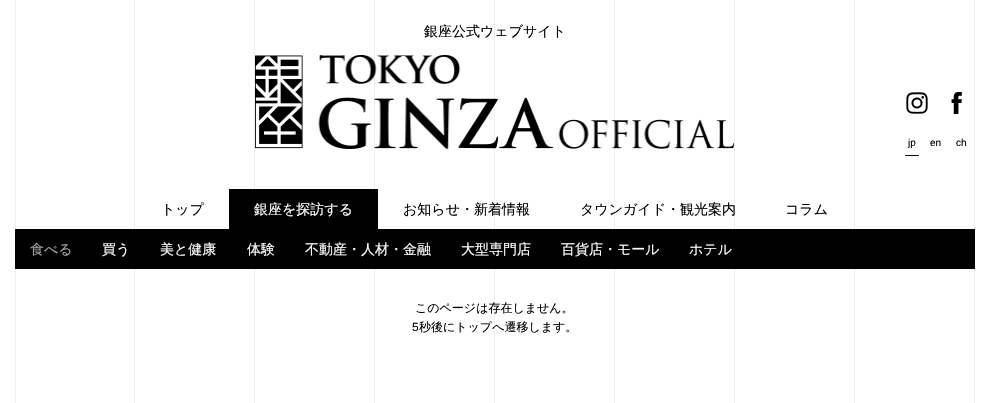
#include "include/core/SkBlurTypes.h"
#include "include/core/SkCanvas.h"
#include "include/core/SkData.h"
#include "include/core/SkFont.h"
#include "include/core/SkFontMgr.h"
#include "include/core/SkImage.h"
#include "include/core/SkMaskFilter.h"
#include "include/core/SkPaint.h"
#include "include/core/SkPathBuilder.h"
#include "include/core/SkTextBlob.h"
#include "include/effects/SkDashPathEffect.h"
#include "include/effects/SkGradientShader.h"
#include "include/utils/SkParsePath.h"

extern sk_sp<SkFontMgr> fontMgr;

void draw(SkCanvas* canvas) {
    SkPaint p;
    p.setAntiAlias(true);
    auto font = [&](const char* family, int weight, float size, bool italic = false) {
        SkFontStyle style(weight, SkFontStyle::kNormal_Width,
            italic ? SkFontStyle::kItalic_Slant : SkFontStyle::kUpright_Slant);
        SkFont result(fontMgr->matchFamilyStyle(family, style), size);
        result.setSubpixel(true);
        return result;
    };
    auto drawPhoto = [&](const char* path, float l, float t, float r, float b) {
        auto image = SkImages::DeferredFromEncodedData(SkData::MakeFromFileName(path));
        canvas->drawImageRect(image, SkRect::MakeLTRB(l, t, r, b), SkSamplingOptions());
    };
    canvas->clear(0xFFFFFFFF);
    drawPhoto("media/1.png", 15, 0, 975, 403);
    auto font1 = font("WenQuanYi Zen Hei", 500, 14);
    p.setColor(0xFF000000);
    canvas->drawString("銀座公式ウェブサイト", 424, 36, font1, p);
    drawPhoto("media/2.png", 255, 55, 734, 149);
    drawPhoto("media/3.png", 906, 92, 928, 114);
    drawPhoto("media/4.png", 951, 92, 962, 114);
    canvas->drawRect(SkRect::MakeLTRB(905, 155, 919, 156), p);
    auto font2 = font("Liberation Sans", 400, 10);
    {
        const struct { const char* s; float x, y; } items[] = {
            {"jp", 908, 146},
            {"en", 930, 146},
            {"ch", 956, 146},
        };
        for (auto [s, x, y] : items) {
            canvas->drawString(s, x, y, font2, p);
        }
    }
    canvas->drawRect(SkRect::MakeLTRB(229, 189, 378, 229), p);
    p.setColor(0xFFFFFFFF);
    canvas->drawString("銀座を探訪する", 254, 214, font1, p);
    p.setColor(0xFF000000);
    canvas->drawRect(SkRect::MakeLTRB(15, 229, 975, 269), p);
    p.setColor(0xFFA3A3A3);
    canvas->drawString("食べる", 30, 254, font1, p);
    p.setColor(0xFFFFFFFF);
    {
        const struct { const char* s; float x, y; } items[] = {
            {"買う", 102, 254},
            {"美と健康", 160, 254},
            {"体験", 247, 254},
            {"不動産・人材・金融", 305, 254},
            {"大型専門店", 461, 254},
            {"百貨店・モール", 561, 254},
            {"ホテル", 689, 254},
        };
        for (auto [s, x, y] : items) {
            canvas->drawString(s, x, y, font1, p);
        }
    }
    p.setColor(0xFF000000);
    {
        const struct { const char* s; float x, y; } items[] = {
            {"トップ", 161, 214},
            {"お知らせ・新着情報", 403, 214},
            {"タウンガイド・観光案内", 580, 214},
            {"コラム", 785, 214},
        };
        for (auto [s, x, y] : items) {
            canvas->drawString(s, x, y, font1, p);
        }
    }
    auto font3 = font("WenQuanYi Zen Hei", 500, 12);
    canvas->drawString("このページは存在しません。", 415, 312, font3, p);
    auto font4 = font("Liberation Sans", 400, 12);
    canvas->drawString("5", 412, 331, font4, p);
    canvas->drawString("秒後にトップへ遷移します。", 419, 331, font3, p);
}
